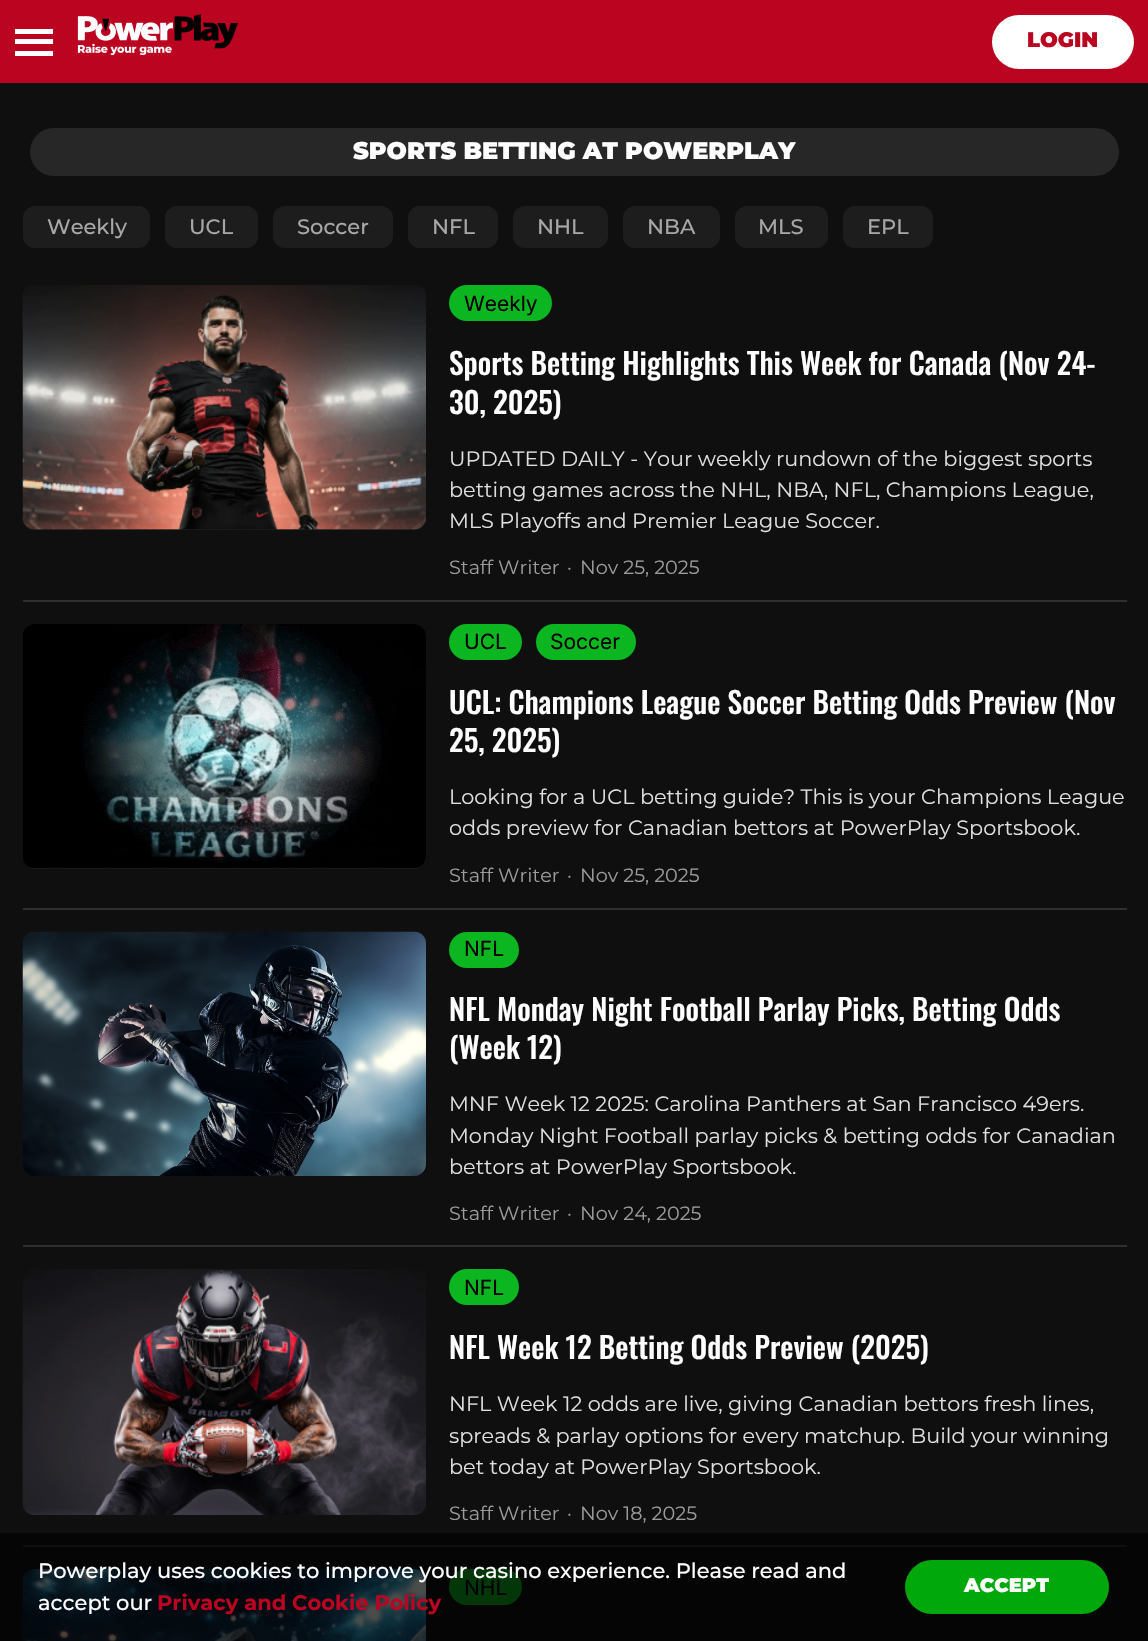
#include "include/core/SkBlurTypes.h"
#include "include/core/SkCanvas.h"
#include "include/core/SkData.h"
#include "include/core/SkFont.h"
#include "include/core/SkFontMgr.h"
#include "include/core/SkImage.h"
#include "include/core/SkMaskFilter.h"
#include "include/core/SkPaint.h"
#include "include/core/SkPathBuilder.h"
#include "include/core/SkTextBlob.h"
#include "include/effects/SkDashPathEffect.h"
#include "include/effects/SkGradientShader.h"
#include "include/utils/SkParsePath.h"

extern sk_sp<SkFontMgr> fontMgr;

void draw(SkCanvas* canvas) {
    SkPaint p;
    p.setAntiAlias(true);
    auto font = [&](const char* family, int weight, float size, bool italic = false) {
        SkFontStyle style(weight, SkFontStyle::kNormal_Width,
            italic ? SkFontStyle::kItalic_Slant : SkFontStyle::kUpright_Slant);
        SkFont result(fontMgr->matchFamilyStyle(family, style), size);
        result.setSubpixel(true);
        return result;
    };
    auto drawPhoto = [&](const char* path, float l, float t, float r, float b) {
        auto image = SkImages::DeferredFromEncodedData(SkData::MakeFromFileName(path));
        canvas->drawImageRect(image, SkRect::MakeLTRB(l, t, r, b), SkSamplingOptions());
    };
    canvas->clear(0xFF0F0F0F);
    {
        const struct { float l, t, r, b; SkColor color; } items[] = {
            {0, 1533, 1148, 1641, 0xFF050505},
            {0, 0, 1148, 83, 0xFFBB0420},
            {15, 29, 53, 34, 0xFFFFFFFF},
            {15, 39, 53, 44, 0xFFFFFFFF},
            {15, 51, 53, 56, 0xFFFFFFFF},
        };
        for (auto [l, t, r, b, color] : items) {
            p.setColor(color);
            canvas->drawRect(SkRect::MakeLTRB(l, t, r, b), p);
        }
    }
    drawPhoto("media/1.png", 77, 14, 238, 56);
    canvas->drawRoundRect(SkRect::MakeLTRB(992, 15, 1134, 69), 27, 27, p);
    auto font1 = font("Montserrat", 900, 21);
    p.setColor(0xFFBB0420);
    canvas->drawString("LOGIN", 1027, 47, font1, p);
    p.setColor(0xFF272727);
    canvas->drawRoundRect(SkRect::MakeLTRB(30, 128, 1119, 176), 24, 24, p);
    auto font2 = font("Montserrat", 900, 24);
    p.setColor(0xFFFFFFFF);
    canvas->drawString("SPORTS BETTING AT POWERPLAY", 353, 159, font2, p);
    p.setColor(0xFF1D1D1E);
    canvas->drawRoundRect(SkRect::MakeLTRB(23, 206, 150, 248), 12, 12, p);
    auto font3 = font("Montserrat", 500, 21);
    p.setColor(0xFFA7A7A7);
    canvas->drawString("Weekly", 47, 234, font3, p);
    p.setColor(0xFF1D1D1E);
    canvas->drawRoundRect(SkRect::MakeLTRB(165, 206, 258, 248), 12, 12, p);
    p.setColor(0xFFA7A7A7);
    canvas->drawString("UCL", 189, 234, font3, p);
    p.setColor(0xFF1D1D1E);
    canvas->drawRoundRect(SkRect::MakeLTRB(273, 206, 393, 248), 12, 12, p);
    p.setColor(0xFFA7A7A7);
    canvas->drawString("Soccer", 297, 234, font3, p);
    p.setColor(0xFF1D1D1E);
    canvas->drawRoundRect(SkRect::MakeLTRB(408, 206, 498, 248), 12, 12, p);
    p.setColor(0xFFA7A7A7);
    canvas->drawString("NFL", 432, 234, font3, p);
    p.setColor(0xFF1D1D1E);
    canvas->drawRoundRect(SkRect::MakeLTRB(513, 206, 608, 248), 12, 12, p);
    p.setColor(0xFFA7A7A7);
    canvas->drawString("NHL", 537, 234, font3, p);
    p.setColor(0xFF1D1D1E);
    canvas->drawRoundRect(SkRect::MakeLTRB(623, 206, 720, 248), 12, 12, p);
    p.setColor(0xFFA7A7A7);
    canvas->drawString("NBA", 647, 234, font3, p);
    p.setColor(0xFF1D1D1E);
    canvas->drawRoundRect(SkRect::MakeLTRB(735, 206, 828, 248), 12, 12, p);
    p.setColor(0xFFA7A7A7);
    canvas->drawString("MLS", 758, 234, font3, p);
    p.setColor(0xFF1D1D1E);
    canvas->drawRoundRect(SkRect::MakeLTRB(843, 206, 933, 248), 12, 12, p);
    p.setColor(0xFFA7A7A7);
    canvas->drawString("EPL", 867, 234, font3, p);
    p.setColor(0xFF1D1D1E);
    canvas->drawRoundRect(SkRect::MakeLTRB(23, 285, 426, 530), 12, 12, p);
    drawPhoto("media/2.png", 22, 285, 426, 530);
    p.setColor(0xFF0BB620);
    canvas->drawRoundRect(SkRect::MakeLTRB(449, 285, 552, 321), 18, 18, p);
    auto font4 = font("Inter", 400, 21);
    p.setColor(0xFF000000);
    canvas->drawString("Weekly", 464, 311, font4, p);
    auto font5 = font("Oswald", 500, 29.6f);
    p.setColor(0xFFFFFFFF);
    canvas->drawString("Sports Betting Highlights This Week for Canada (Nov 24-", 449, 375, font5, p);
    canvas->drawString("30, 2025)", 449, 414, font5, p);
    auto font6 = font("Montserrat", 400, 20.8f);
    p.setColor(0xFFDFDFDF);
    {
        const struct { const char* s; float x, y; } items[] = {
            {"UPDATED DAILY - Your weekly rundown of the biggest sports", 449, 466},
            {"betting games across the NHL, NBA, NFL, Champions League,", 449, 497},
            {"MLS Playoffs and Premier League Soccer.", 449, 528},
        };
        for (auto [s, x, y] : items) {
            canvas->drawString(s, x, y, font6, p);
        }
    }
    auto font7 = font("Montserrat", 400, 19.25f);
    p.setColor(0xFF9B9B9B);
    {
        const struct { const char* s; float x, y; } items[] = {
            {"Staff Writer", 449, 574},
            {"·", 567, 574},
            {"Nov 25, 2025", 580, 574},
        };
        for (auto [s, x, y] : items) {
            canvas->drawString(s, x, y, font7, p);
        }
    }
    p.setColor(0xFF2F2F32);
    canvas->drawRect(SkRect::MakeLTRB(23, 600, 1127, 602), p);
    p.setColor(0xFF1D1D1E);
    canvas->drawRoundRect(SkRect::MakeLTRB(23, 624, 426, 869), 12, 12, p);
    drawPhoto("media/3.png", 23, 624, 426, 869);
    p.setColor(0xFF0BB620);
    canvas->drawRoundRect(SkRect::MakeLTRB(449, 624, 522, 660), 18, 18, p);
    p.setColor(0xFF000000);
    canvas->drawString("UCL", 464, 649, font4, p);
    p.setColor(0xFF0BB620);
    canvas->drawRoundRect(SkRect::MakeLTRB(536, 624, 636, 660), 18, 18, p);
    p.setColor(0xFF000000);
    canvas->drawString("Soccer", 550, 649, font4, p);
    p.setColor(0xFFFFFFFF);
    canvas->drawString("UCL: Champions League Soccer Betting Odds Preview (Nov", 449, 714, font5, p);
    canvas->drawString("25, 2025)", 449, 752, font5, p);
    p.setColor(0xFFDFDFDF);
    canvas->drawString("Looking for a UCL betting guide? This is your Champions League", 449, 804, font6, p);
    canvas->drawString("odds preview for Canadian bettors at PowerPlay Sportsbook.", 449, 835, font6, p);
    p.setColor(0xFF9B9B9B);
    {
        const struct { const char* s; float x, y; } items[] = {
            {"Staff Writer", 449, 882},
            {"·", 567, 882},
            {"Nov 25, 2025", 580, 882},
        };
        for (auto [s, x, y] : items) {
            canvas->drawString(s, x, y, font7, p);
        }
    }
    p.setColor(0xFF2F2F32);
    canvas->drawRect(SkRect::MakeLTRB(23, 908, 1127, 910), p);
    drawPhoto("media/4.png", 22, 931, 426, 1176);
    p.setColor(0xFF0BB620);
    canvas->drawRoundRect(SkRect::MakeLTRB(449, 932, 519, 968), 18, 18, p);
    p.setColor(0xFF000000);
    canvas->drawString("NFL", 464, 956, font4, p);
    p.setColor(0xFFFFFFFF);
    canvas->drawString("NFL Monday Night Football Parlay Picks, Betting Odds", 449, 1021, font5, p);
    canvas->drawString("(Week 12)", 449, 1059, font5, p);
    p.setColor(0xFFDFDFDF);
    {
        const struct { const char* s; float x, y; } items[] = {
            {"MNF Week 12 2025: Carolina Panthers at San Francisco 49ers.", 449, 1111},
            {"Monday Night Football parlay picks & betting odds for Canadian", 449, 1143},
            {"bettors at PowerPlay Sportsbook.", 449, 1174},
        };
        for (auto [s, x, y] : items) {
            canvas->drawString(s, x, y, font6, p);
        }
    }
    p.setColor(0xFF9B9B9B);
    {
        const struct { const char* s; float x, y; } items[] = {
            {"Staff Writer", 449, 1220},
            {"·", 567, 1220},
            {"Nov 24, 2025", 580, 1220},
        };
        for (auto [s, x, y] : items) {
            canvas->drawString(s, x, y, font7, p);
        }
    }
    p.setColor(0xFF2F2F32);
    canvas->drawRect(SkRect::MakeLTRB(23, 1245, 1127, 1247), p);
    p.setColor(0xFF1D1D1E);
    canvas->drawRoundRect(SkRect::MakeLTRB(23, 1269, 426, 1515), 12, 12, p);
    drawPhoto("media/5.png", 22, 1269, 426, 1515);
    p.setColor(0xFF0BB620);
    canvas->drawRoundRect(SkRect::MakeLTRB(449, 1269, 519, 1305), 18, 18, p);
    p.setColor(0xFF000000);
    canvas->drawString("NFL", 464, 1295, font4, p);
    p.setColor(0xFFFFFFFF);
    canvas->drawString("NFL Week 12 Betting Odds Preview (2025)", 449, 1359, font5, p);
    p.setColor(0xFFDFDFDF);
    {
        const struct { const char* s; float x, y; } items[] = {
            {"NFL Week 12 odds are live, giving Canadian bettors fresh lines,", 449, 1411},
            {"spreads & parlay options for every matchup. Build your winning", 449, 1443},
            {"bet today at PowerPlay Sportsbook.", 449, 1474},
        };
        for (auto [s, x, y] : items) {
            canvas->drawString(s, x, y, font6, p);
        }
    }
    p.setColor(0xFF9B9B9B);
    {
        const struct { const char* s; float x, y; } items[] = {
            {"Staff Writer", 449, 1520},
            {"·", 567, 1520},
            {"Nov 18, 2025", 580, 1520},
        };
        for (auto [s, x, y] : items) {
            canvas->drawString(s, x, y, font7, p);
        }
    }
    p.setColor(0xFF0E0E0F);
    canvas->drawRect(SkRect::MakeLTRB(23, 1545, 1127, 1547), p);
    drawPhoto("media/6.png", 22, 1569, 426, 1641);
    p.setColor(0xFF03370A);
    canvas->drawRoundRect(SkRect::MakeLTRB(449, 1569, 522, 1605), 18, 18, p);
    p.setColor(0xFF000000);
    canvas->drawString("NHL", 464, 1595, font4, p);
    p.setColor(0xFFFFFFFF);
    canvas->drawString("Powerplay uses cookies to improve your casino experience. Please read and", 38, 1578, font3, p);
    canvas->drawString("accept our", 38, 1610, font3, p);
    auto font8 = font("Montserrat", 700, 21);
    p.setColor(0xFFBB0420);
    canvas->drawString("Privacy and Cookie Policy", 157, 1610, font8, p);
    p.setColor(0xFF00A80B);
    canvas->drawRoundRect(SkRect::MakeLTRB(905, 1560, 1109, 1614), 27, 27, p);
    auto font9 = font("Montserrat", 900, 19.5f);
    p.setColor(0xFFFFFFFF);
    canvas->drawString("ACCEPT", 964, 1592, font9, p);
}
